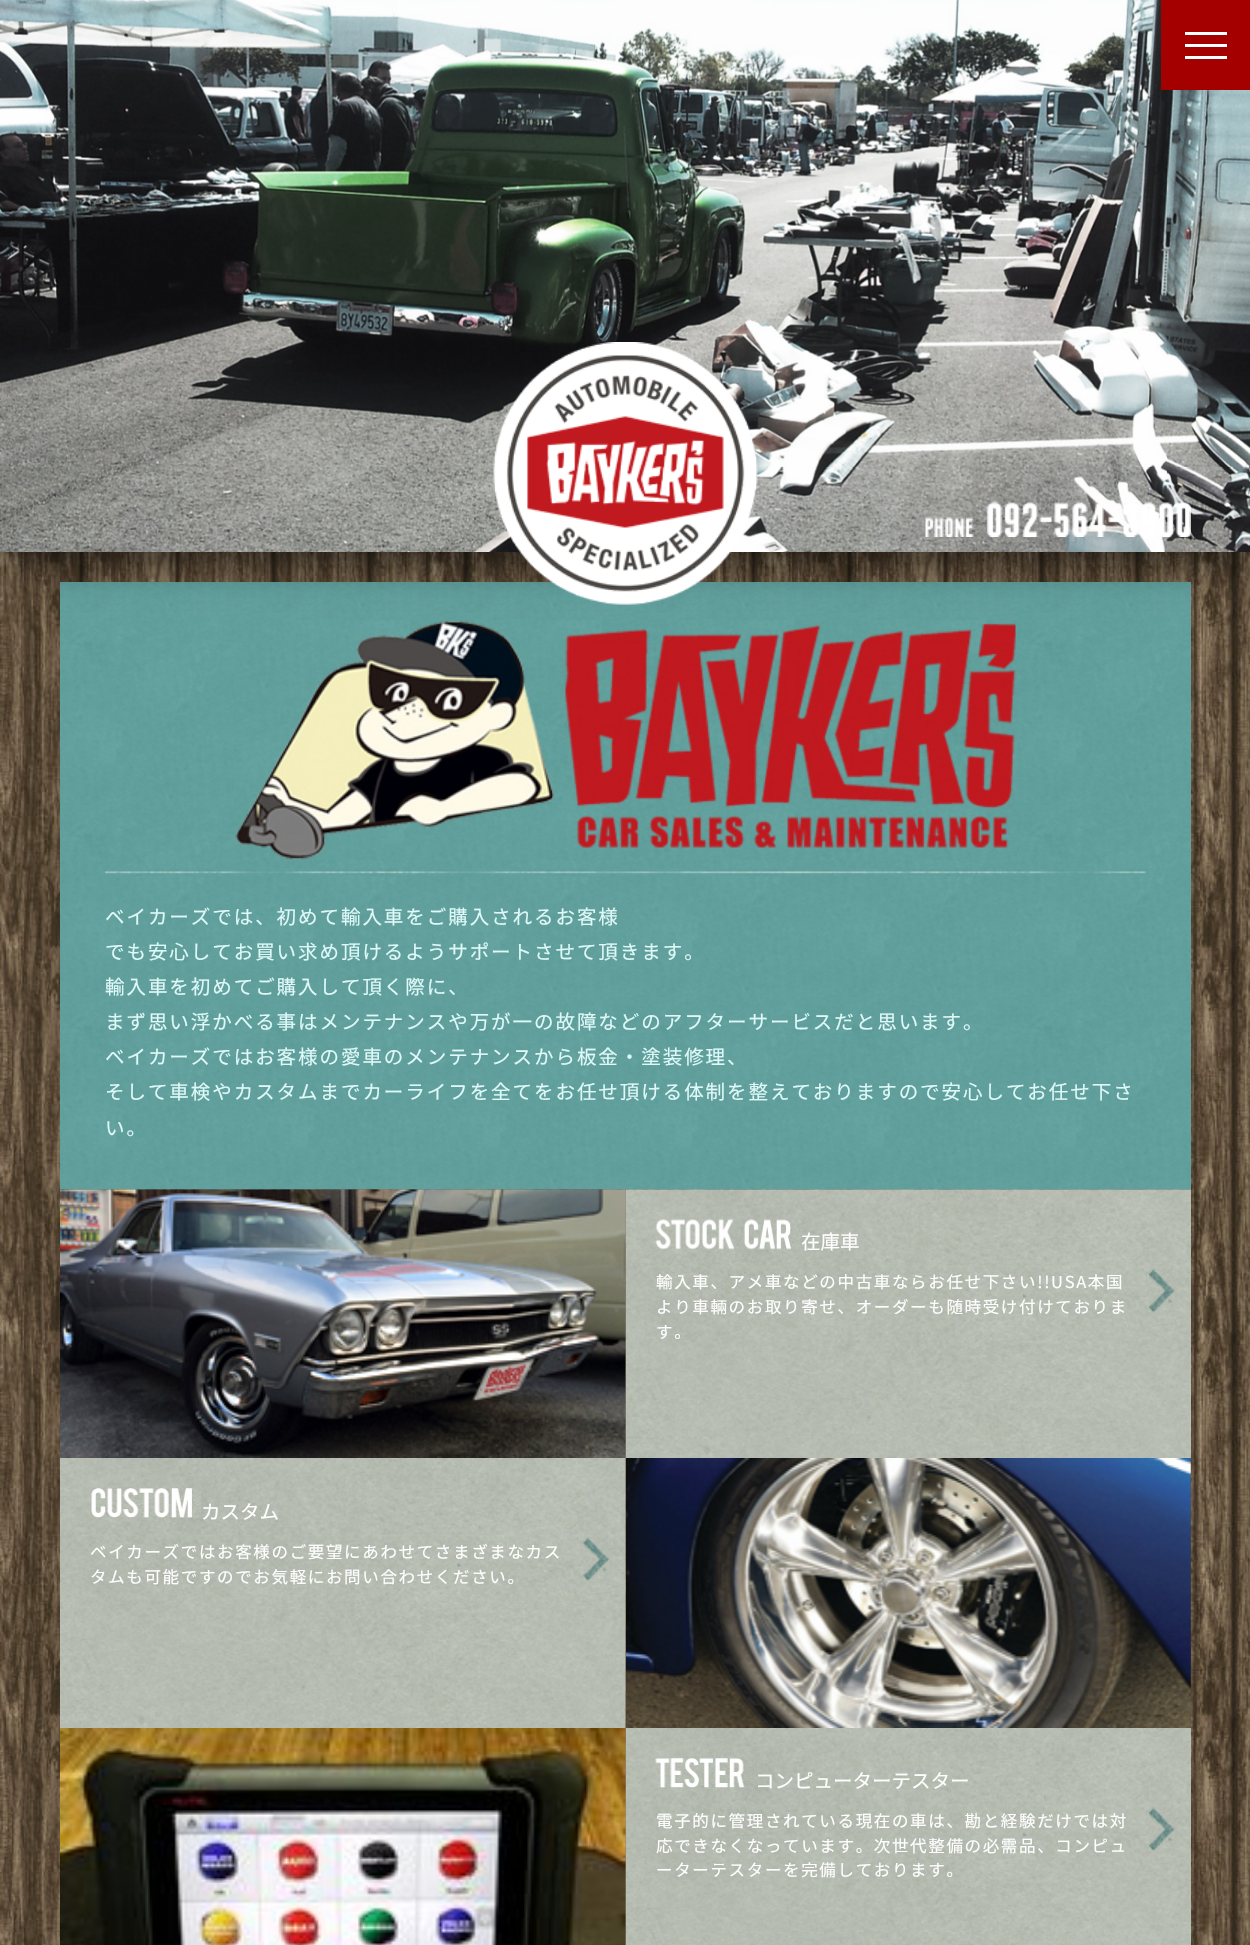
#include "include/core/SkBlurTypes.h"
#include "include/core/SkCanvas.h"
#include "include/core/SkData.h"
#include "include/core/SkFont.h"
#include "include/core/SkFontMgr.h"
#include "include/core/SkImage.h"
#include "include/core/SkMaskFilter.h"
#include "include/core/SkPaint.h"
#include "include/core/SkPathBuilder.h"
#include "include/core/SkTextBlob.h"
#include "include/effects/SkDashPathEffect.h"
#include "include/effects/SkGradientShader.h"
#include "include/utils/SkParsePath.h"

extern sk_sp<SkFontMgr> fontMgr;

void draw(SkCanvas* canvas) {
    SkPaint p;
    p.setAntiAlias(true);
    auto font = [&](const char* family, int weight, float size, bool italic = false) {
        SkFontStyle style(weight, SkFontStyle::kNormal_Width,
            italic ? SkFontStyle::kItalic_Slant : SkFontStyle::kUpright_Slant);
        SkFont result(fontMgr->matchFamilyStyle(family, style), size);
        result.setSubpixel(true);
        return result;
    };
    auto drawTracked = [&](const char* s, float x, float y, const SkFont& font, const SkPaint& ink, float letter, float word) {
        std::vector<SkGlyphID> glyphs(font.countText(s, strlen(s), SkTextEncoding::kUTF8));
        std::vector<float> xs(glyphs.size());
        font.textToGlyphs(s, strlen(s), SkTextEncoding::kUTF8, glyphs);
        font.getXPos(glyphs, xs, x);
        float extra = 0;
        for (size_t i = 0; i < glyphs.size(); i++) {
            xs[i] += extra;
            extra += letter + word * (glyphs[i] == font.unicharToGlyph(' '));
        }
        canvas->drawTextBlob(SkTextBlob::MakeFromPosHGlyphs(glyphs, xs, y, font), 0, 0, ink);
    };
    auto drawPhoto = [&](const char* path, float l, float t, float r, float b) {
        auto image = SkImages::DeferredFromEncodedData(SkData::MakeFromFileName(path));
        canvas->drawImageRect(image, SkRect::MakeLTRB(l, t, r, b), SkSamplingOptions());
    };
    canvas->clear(0xFFFFFFFF);
    drawPhoto("media/1.png", 0, 552, 1250, 1945);
    drawPhoto("media/5.png", 60, 582, 1191, 1190);
    p.setColor(0x80000000);
    p.setMaskFilter(SkMaskFilter::MakeBlur(kNormal_SkBlurStyle, 15));
    canvas->drawRect(SkRect::MakeLTRB(0, 15, 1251, 567), p);
    p.setMaskFilter(nullptr);
    drawPhoto("media/2.png", 0, 0, 1250, 552);
    {
        const struct { float l, t, r, b; SkColor color; } items[] = {
            {1161, 0, 1250, 90, 0xFFA40000},
            {1185, 32, 1227, 35, 0xFFFFFFFF},
            {1185, 44, 1227, 47, 0xFFFFFFFF},
            {1185, 56, 1227, 59, 0xFFFFFFFF},
        };
        for (auto [l, t, r, b, color] : items) {
            p.setColor(color);
            canvas->drawRect(SkRect::MakeLTRB(l, t, r, b), p);
        }
    }
    drawPhoto("media/3.png", 925, 502, 1191, 537);
    drawPhoto("media/4.png", 493, 342, 758, 605);
    drawPhoto("media/6.png", 234, 620, 1017, 860);
    drawPhoto("media/7.png", 105, 868, 1146, 876);
    auto font1 = font("Noto Sans JP", 400, 19.5f);
    p.setColor(0xFFDEF9F8);
    {
        const struct { const char* s; float x, y; } items[] = {
            {"ベイカーズでは、初めて輸入車をご購入されるお客様", 105, 924},
            {"でも安心してお買い求め頂けるようサポートさせて頂きます。", 105, 959},
            {"輸入車を初めてご購入して頂く際に、", 105, 994},
            {"まず思い浮かべる事はメンテナンスや万が一の故障などのアフターサービスだと思います。", 105, 1029},
            {"ベイカーズではお客様の愛車のメンテナンスから板金・塗装修理、", 105, 1064},
            {"そして車検やカスタムまでカーライフを全てをお任せ頂ける体制を整えておりますので安心してお任せ下さ", 105, 1099},
            {"い。", 105, 1135},
        };
        for (auto [s, x, y] : items) {
            drawTracked(s, x, y, font1, p, 1.95f, 0);
        }
    }
    drawPhoto("media/9.png", 625, 1189, 1191, 1458);
    drawPhoto("media/8.png", 60, 1189, 626, 1458);
    drawPhoto("media/10.png", 655, 1219, 801, 1250);
    p.setColor(0xFFFFFFFF);
    canvas->drawString("在庫車", 801, 1249, font1, p);
    auto font2 = font("Noto Sans JP", 400, 16.5f);
    {
        const struct { const char* s; float x, y; } items[] = {
            {"輸入車、アメ車などの中古車ならお任せ下さい!!USA本国", 656, 1288},
            {"より車輛のお取り寄せ、オーダーも随時受け付けておりま", 656, 1313},
            {"す。", 656, 1338},
        };
        for (auto [s, x, y] : items) {
            drawTracked(s, x, y, font2, p, 1.65f, 0);
        }
    }
    drawPhoto("media/11.png", 1149, 1269, 1175, 1313);
    drawPhoto("media/12.png", 60, 1458, 626, 1728);
    drawPhoto("media/13.png", 90, 1488, 201, 1518);
    canvas->drawString("カスタム", 201, 1519, font1, p);
    drawTracked("ベイカーズではお客様のご要望にあわせてさまざまなカス", 90, 1558, font2, p, 1.65f, 0);
    drawTracked("タムも可能ですのでお気軽にお問い合わせください。", 90, 1583, font2, p, 1.65f, 0);
    drawPhoto("media/14.png", 583, 1537, 609, 1581);
    drawPhoto("media/15.png", 626, 1458, 1191, 1728);
    drawPhoto("media/17.png", 625, 1728, 1191, 1945);
    drawPhoto("media/16.png", 60, 1728, 626, 1945);
    drawPhoto("media/18.png", 655, 1758, 755, 1788);
    canvas->drawString("コンピューターテスター", 755, 1788, font1, p);
    {
        const struct { const char* s; float x, y; } items[] = {
            {"電子的に管理されている現在の車は、勘と経験だけでは対", 656, 1827},
            {"応できなくなっています。次世代整備の必需品、コンピュ", 656, 1852},
            {"ーターテスターを完備しております。", 656, 1876},
        };
        for (auto [s, x, y] : items) {
            drawTracked(s, x, y, font2, p, 1.65f, 0);
        }
    }
    drawPhoto("media/19.png", 1149, 1807, 1175, 1851);
}
